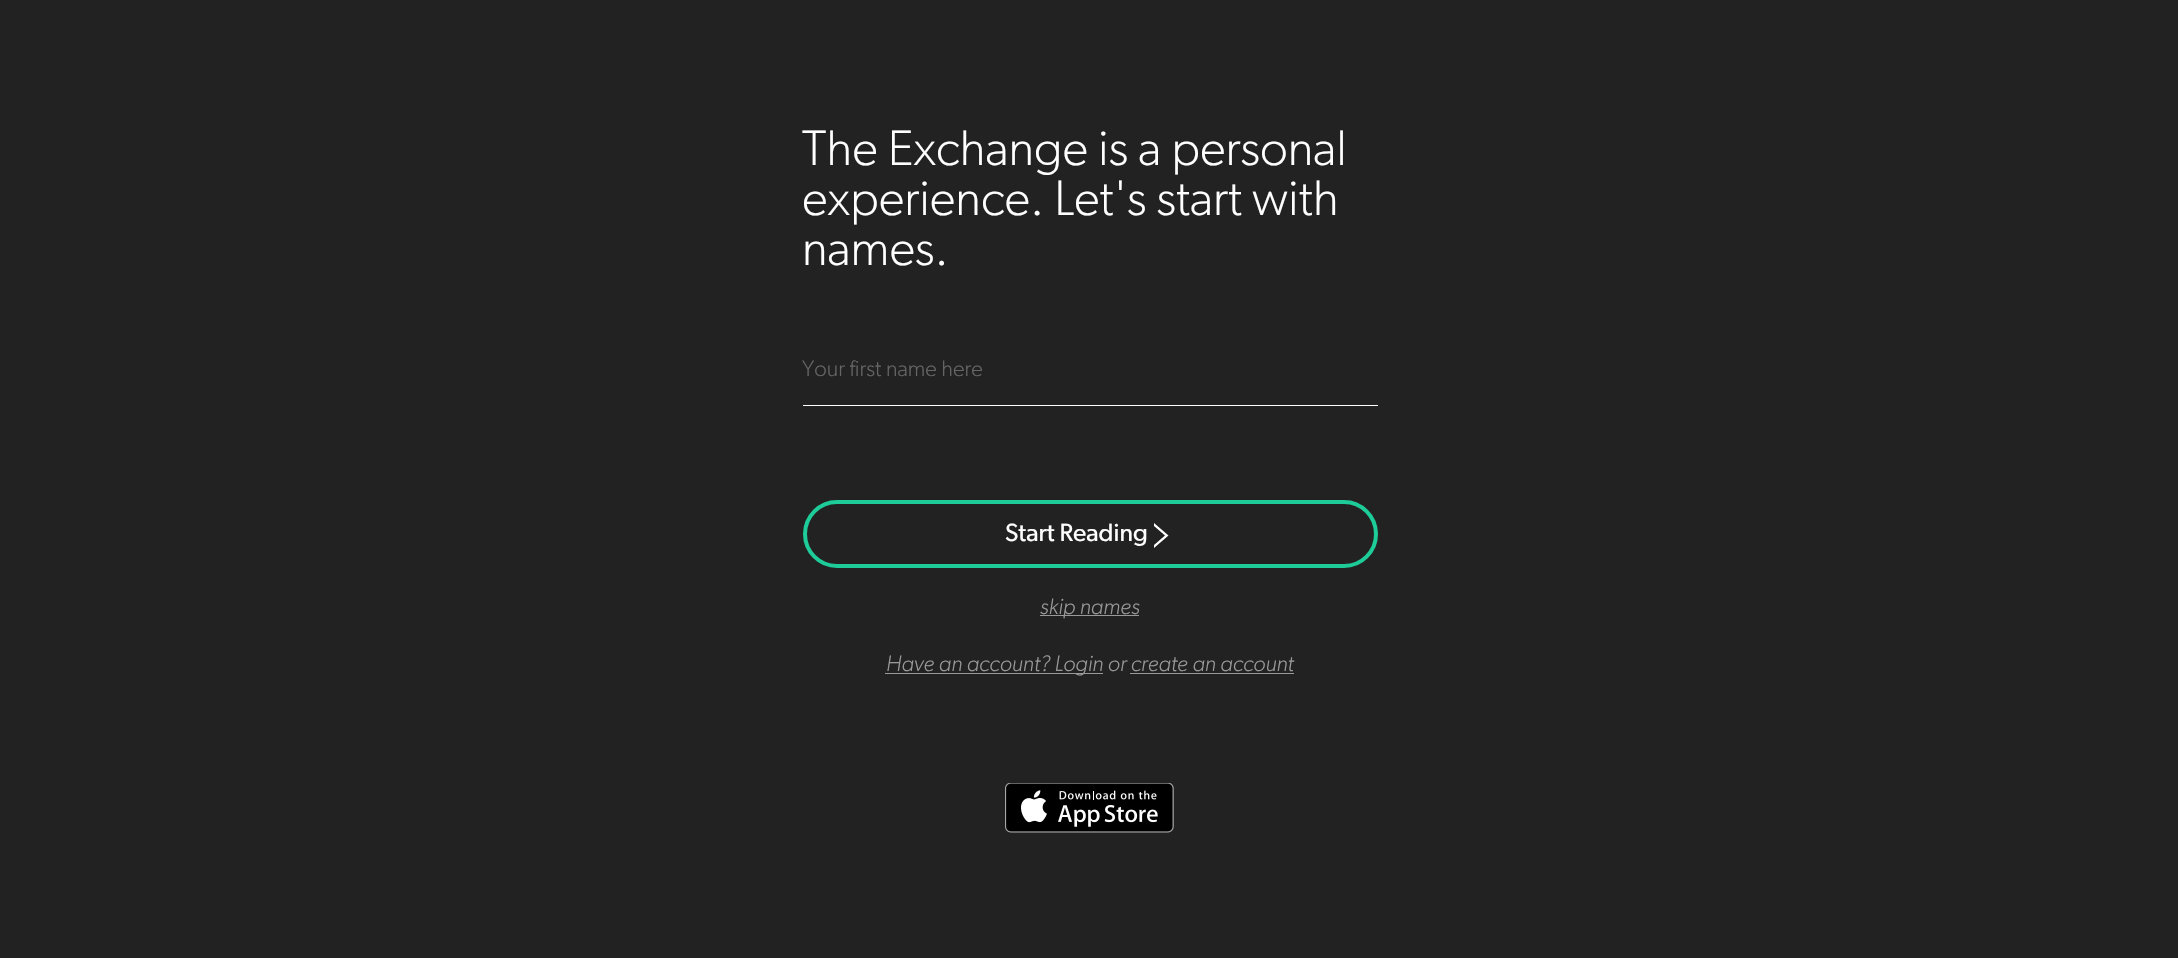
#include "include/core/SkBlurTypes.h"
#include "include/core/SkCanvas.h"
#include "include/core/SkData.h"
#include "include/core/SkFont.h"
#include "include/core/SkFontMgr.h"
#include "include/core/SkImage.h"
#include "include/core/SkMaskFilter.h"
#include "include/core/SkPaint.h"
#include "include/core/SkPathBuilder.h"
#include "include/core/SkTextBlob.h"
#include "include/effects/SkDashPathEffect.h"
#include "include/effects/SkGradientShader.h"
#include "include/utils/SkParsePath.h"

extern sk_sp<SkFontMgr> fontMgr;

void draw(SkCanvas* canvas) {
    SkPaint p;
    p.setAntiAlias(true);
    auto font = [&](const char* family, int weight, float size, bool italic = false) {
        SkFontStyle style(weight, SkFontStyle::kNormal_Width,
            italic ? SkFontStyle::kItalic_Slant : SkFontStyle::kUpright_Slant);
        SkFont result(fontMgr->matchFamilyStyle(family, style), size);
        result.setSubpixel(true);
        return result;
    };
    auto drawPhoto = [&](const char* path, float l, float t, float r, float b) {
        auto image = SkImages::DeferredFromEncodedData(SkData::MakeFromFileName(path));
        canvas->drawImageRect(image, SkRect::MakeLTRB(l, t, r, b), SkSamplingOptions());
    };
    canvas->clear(0xFF222222);
    auto font1 = font("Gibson", 300, 50);
    p.setColor(0xFFFFFFFF);
    {
        const struct { const char* s; float x, y; } items[] = {
            {"The Exchange is a personal", 802, 165},
            {"experience. Let's start with", 802, 215},
            {"names.", 802, 265},
        };
        for (auto [s, x, y] : items) {
            canvas->drawString(s, x, y, font1, p);
        }
    }
    canvas->drawRect(SkRect::MakeLTRB(803, 405, 1378, 406), p);
    auto font2 = font("Gibson", 300, 22.5f);
    p.setColor(0xFF666666);
    canvas->drawString("Your first name here", 802, 376, font2, p);
    p.setStyle(SkPaint::kStroke_Style);
    p.setStrokeWidth(4);
    p.setColor(0xFF1DCC98);
    canvas->drawRoundRect(SkRect::MakeLTRB(805, 502, 1376, 566), 32, 32, p);
    auto font3 = font("Gibson", 400, 25);
    p.setStyle(SkPaint::kFill_Style);
    p.setColor(0xFFFFFFFF);
    canvas->drawString("Start Reading", 1005, 541, font3, p);
    canvas->drawPath(SkPathBuilder().moveTo(1168.5f, 535.5f).lineTo(1154, 548).lineTo(1154, 545).lineTo(1165, 535.5f).lineTo(1154, 526).lineTo(1154, 523).close().detach(), p);
    p.setColor(0xFF999999);
    canvas->drawRect(SkRect::MakeLTRB(1040, 615, 1139, 616), p);
    auto font4 = font("Gibson", 300, 22.5f, true);
    canvas->drawString("skip names", 1040, 614, font4, p);
    canvas->drawRect(SkRect::MakeLTRB(885, 673, 1103, 674), p);
    canvas->drawString("Have an account? Login or create an account", 886, 671, font4, p);
    canvas->drawRect(SkRect::MakeLTRB(1130, 673, 1294, 674), p);
    drawPhoto("media/1.png", 1005, 783, 1174, 833);
}
